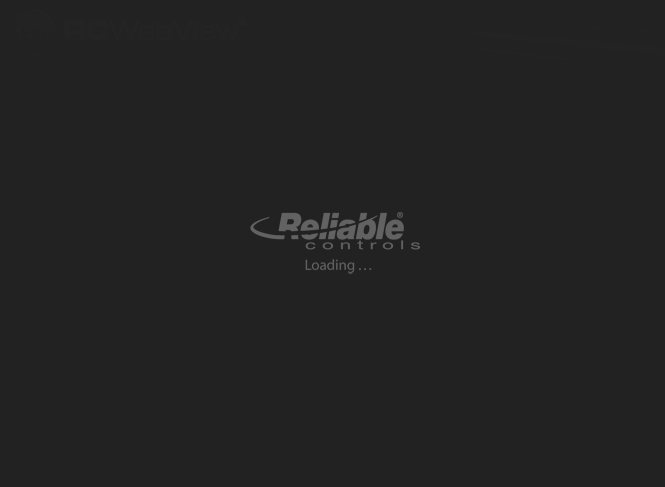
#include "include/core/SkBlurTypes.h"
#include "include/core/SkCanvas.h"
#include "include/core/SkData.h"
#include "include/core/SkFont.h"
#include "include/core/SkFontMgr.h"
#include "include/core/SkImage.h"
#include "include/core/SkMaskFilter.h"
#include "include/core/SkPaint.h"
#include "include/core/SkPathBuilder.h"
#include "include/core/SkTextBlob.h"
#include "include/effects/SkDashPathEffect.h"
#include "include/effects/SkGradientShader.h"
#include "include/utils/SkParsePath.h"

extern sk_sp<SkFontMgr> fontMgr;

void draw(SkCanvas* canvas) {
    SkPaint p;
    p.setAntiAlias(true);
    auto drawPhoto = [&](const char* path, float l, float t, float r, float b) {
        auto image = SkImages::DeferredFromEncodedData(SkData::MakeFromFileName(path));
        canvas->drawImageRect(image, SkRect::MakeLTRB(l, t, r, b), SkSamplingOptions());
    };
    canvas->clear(0xFF222222);
    drawPhoto("media/1.png", 250, 0, 665, 60);
    drawPhoto("media/2.png", 11, 8, 247, 57);
    drawPhoto("media/3.png", 250, 212, 420, 274);
}
